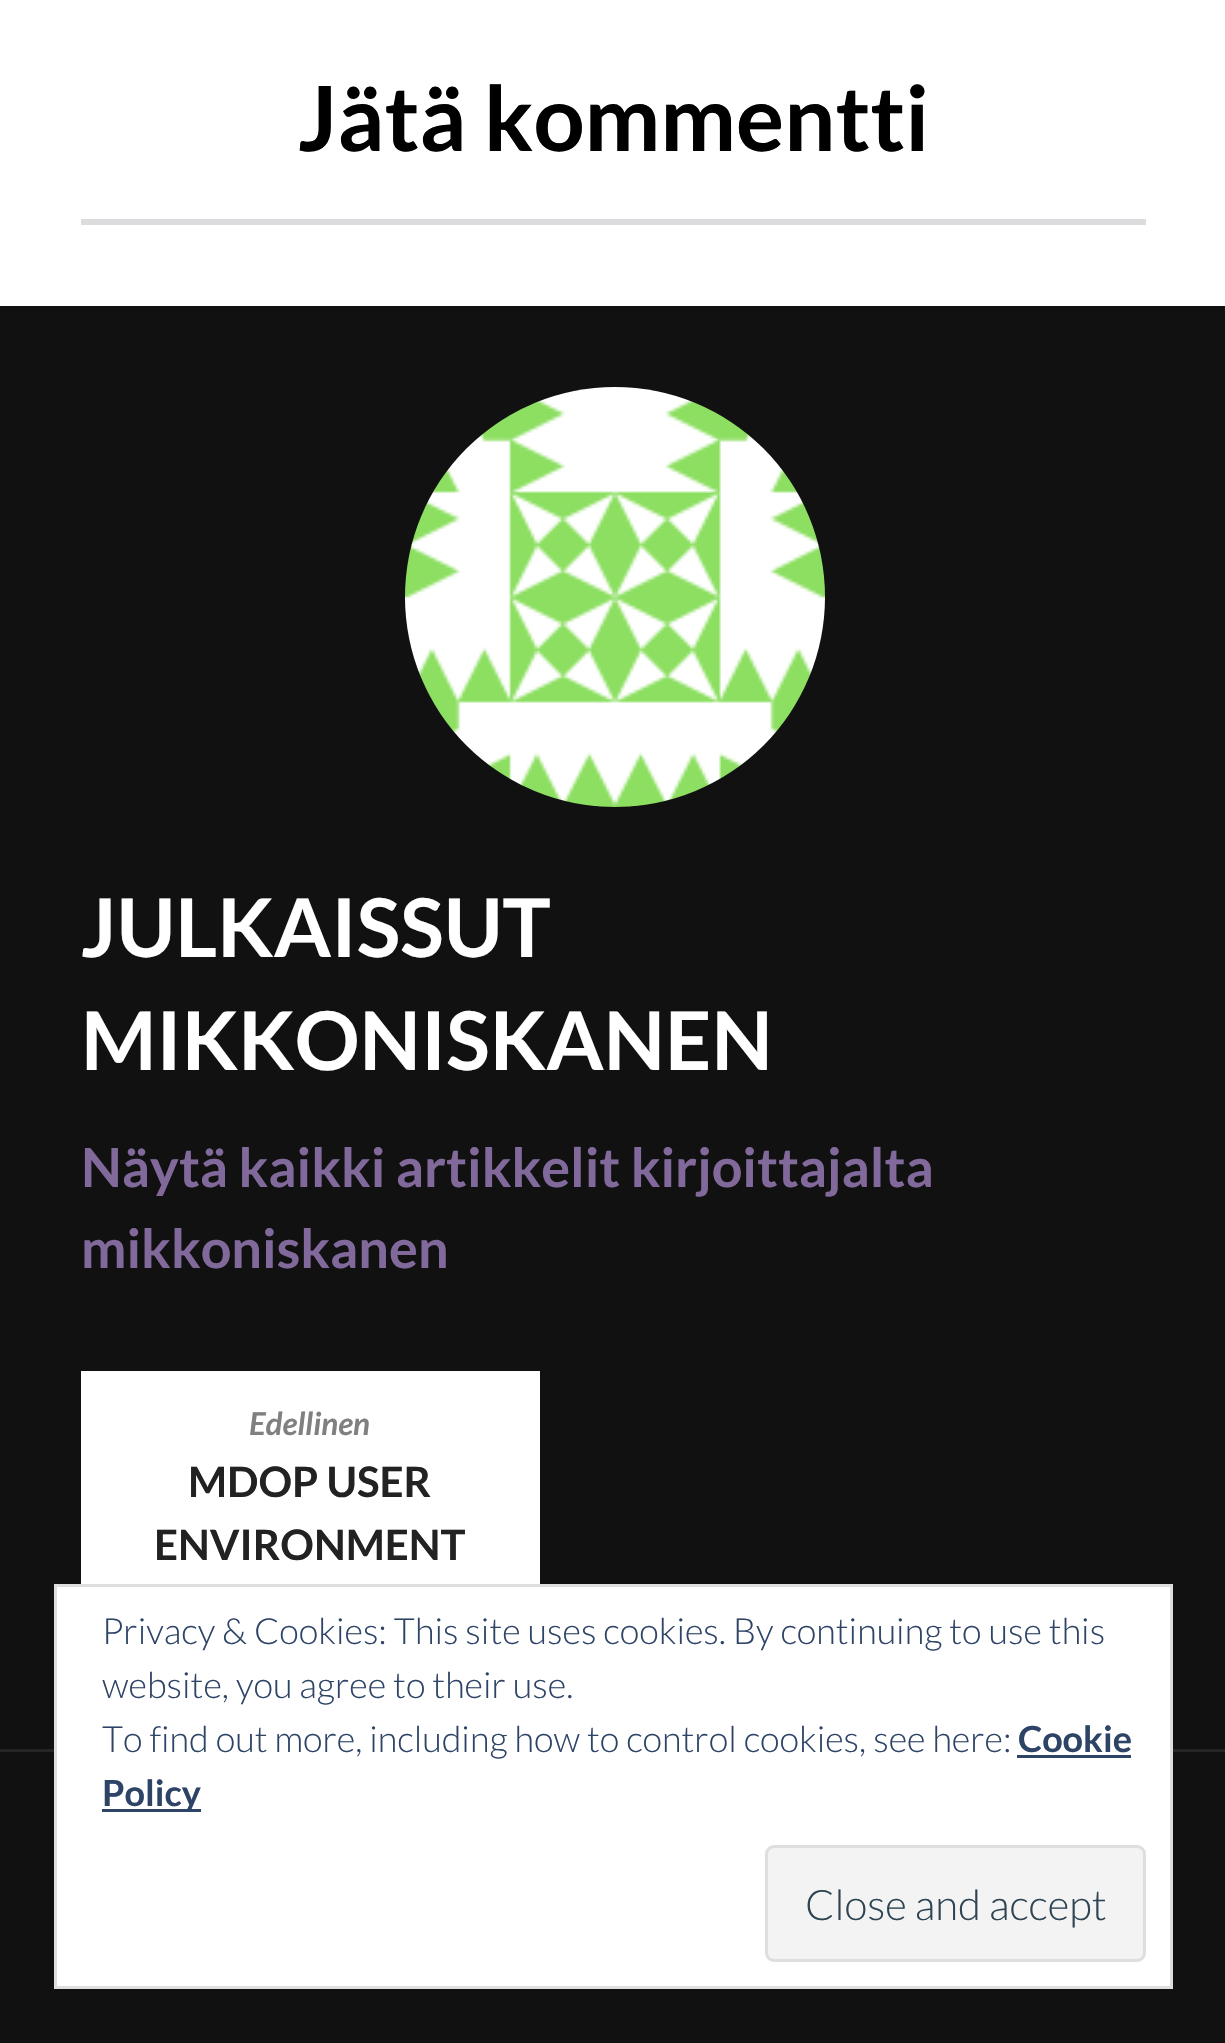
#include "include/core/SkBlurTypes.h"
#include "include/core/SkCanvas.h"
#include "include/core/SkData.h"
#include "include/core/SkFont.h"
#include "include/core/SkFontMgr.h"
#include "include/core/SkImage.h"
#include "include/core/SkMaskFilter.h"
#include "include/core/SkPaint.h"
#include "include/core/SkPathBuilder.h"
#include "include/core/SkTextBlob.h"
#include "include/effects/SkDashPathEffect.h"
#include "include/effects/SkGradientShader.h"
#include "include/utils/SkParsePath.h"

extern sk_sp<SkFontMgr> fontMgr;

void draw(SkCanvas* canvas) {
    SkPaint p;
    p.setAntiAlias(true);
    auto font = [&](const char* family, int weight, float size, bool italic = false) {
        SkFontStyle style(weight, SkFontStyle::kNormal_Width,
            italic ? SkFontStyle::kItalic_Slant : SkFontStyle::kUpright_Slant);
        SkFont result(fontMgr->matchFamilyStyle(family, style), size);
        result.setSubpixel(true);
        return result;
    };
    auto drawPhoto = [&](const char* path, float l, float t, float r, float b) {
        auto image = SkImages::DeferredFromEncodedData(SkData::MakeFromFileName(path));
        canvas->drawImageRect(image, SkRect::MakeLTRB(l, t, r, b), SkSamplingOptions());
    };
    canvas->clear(0xFFFFFFFF);
    auto font1 = font("Lato", 700, 90);
    p.setColor(0xFF000000);
    canvas->drawString("Jätä kommentti", 298, 151, font1, p);
    {
        const struct { float l, t, r, b; SkColor color; } items[] = {
            {81, 219, 1146, 225, 0xFFDCDCDE},
            {0, 306, 1225, 1749, 0xFF111111},
            {0, 1749, 1225, 1752, 0xFF252525},
        };
        for (auto [l, t, r, b, color] : items) {
            p.setColor(color);
            canvas->drawRect(SkRect::MakeLTRB(l, t, r, b), p);
        }
    }
    drawPhoto("media/1.png", 405, 387, 825, 807);
    auto font2 = font("Lato", 700, 81);
    p.setColor(0xFFFFFFFF);
    canvas->drawString("JULKAISSUT", 81, 957, font2, p);
    canvas->drawString("MIKKONISKANEN", 81, 1070, font2, p);
    auto font3 = font("Lato", 700, 54);
    p.setColor(0xFF81699B);
    canvas->drawString("Näytä kaikki artikkelit kirjoittajalta", 81, 1187, font3, p);
    canvas->drawString("mikkoniskanen", 81, 1268, font3, p);
    p.setColor(0xFFFFFFFF);
    canvas->drawRect(SkRect::MakeLTRB(81, 1371, 540, 1584), p);
    auto font4 = font("Lato", 700, 31.5f, true);
    p.setColor(0xFF808080);
    canvas->drawString("Edellinen", 249, 1435, font4, p);
    auto font5 = font("Lato", 700, 42);
    p.setColor(0xFF222222);
    canvas->drawString("MDOP USER", 188, 1497, font5, p);
    canvas->drawString("ENVIRONMENT", 154, 1560, font5, p);
    p.setColor(0xFF111111);
    canvas->drawRect(SkRect::MakeLTRB(0, 1752, 1225, 2043), p);
    p.setColor(0xFFFFFFFF);
    canvas->drawRect(SkRect::MakeLTRB(55.5f, 1585.5f, 1171.5f, 1987.5f), p);
    p.setStyle(SkPaint::kStroke_Style);
    p.setStrokeWidth(3);
    p.setColor(0xFFDEDEDE);
    canvas->drawRect(SkRect::MakeLTRB(55.5f, 1585.5f, 1171.5f, 1987.5f), p);
    auto font6 = font("Lato", 300, 36);
    p.setStyle(SkPaint::kFill_Style);
    p.setColor(0xFF2E4467);
    {
        const struct { const char* s; float x, y; } items[] = {
            {"Privacy & Cookies: This site uses cookies. By continuing to use this", 102, 1644},
            {"website, you agree to their use.", 102, 1698},
            {"To find out more, including how to control cookies, see here:", 102, 1752},
        };
        for (auto [s, x, y] : items) {
            canvas->drawString(s, x, y, font6, p);
        }
    }
    auto font7 = font("Lato", 700, 36);
    canvas->drawString("Cookie", 1018, 1752, font7, p);
    canvas->drawRect(SkRect::MakeLTRB(1017, 1755, 1131, 1758), p);
    canvas->drawRect(SkRect::MakeLTRB(102, 1809, 201, 1812), p);
    canvas->drawString("Policy", 102, 1806, font7, p);
    p.setColor(0xFFF3F3F3);
    canvas->drawRoundRect(SkRect::MakeLTRB(766.5f, 1846.5f, 1144.5f, 1960.5f), 7.5f, 7.5f, p);
    p.setStyle(SkPaint::kStroke_Style);
    p.setColor(0xFFDEDEDE);
    canvas->drawRoundRect(SkRect::MakeLTRB(766.5f, 1846.5f, 1144.5f, 1960.5f), 7.5f, 7.5f, p);
    auto font8 = font("Lato", 300, 42);
    p.setStyle(SkPaint::kFill_Style);
    p.setColor(0xFF2E4453);
    canvas->drawString("Close and accept", 805, 1920, font8, p);
}
